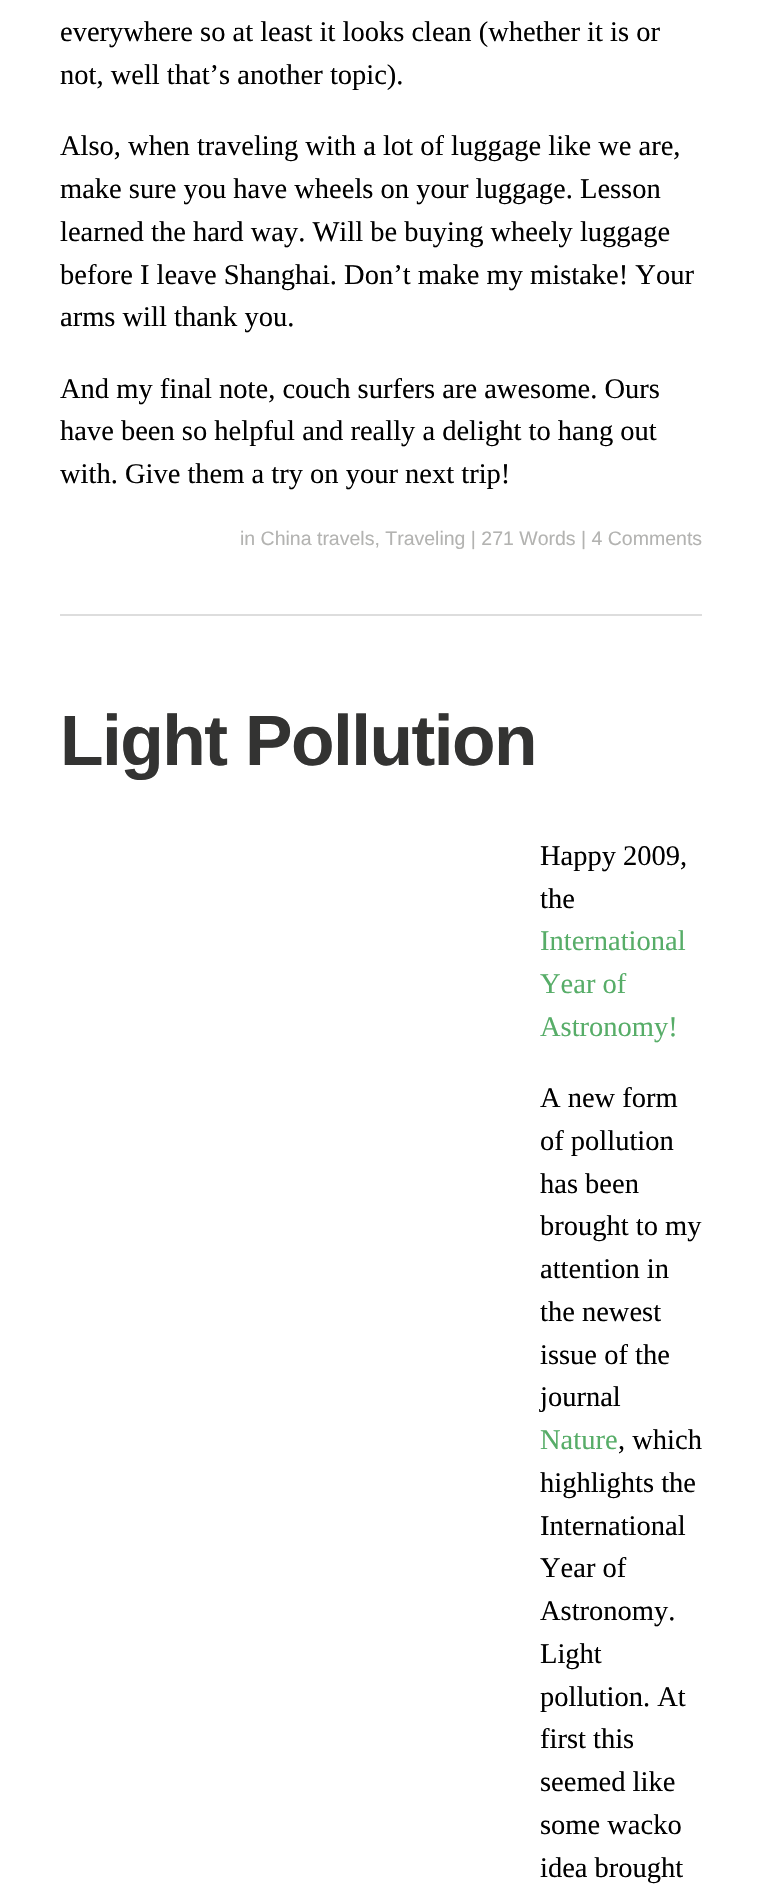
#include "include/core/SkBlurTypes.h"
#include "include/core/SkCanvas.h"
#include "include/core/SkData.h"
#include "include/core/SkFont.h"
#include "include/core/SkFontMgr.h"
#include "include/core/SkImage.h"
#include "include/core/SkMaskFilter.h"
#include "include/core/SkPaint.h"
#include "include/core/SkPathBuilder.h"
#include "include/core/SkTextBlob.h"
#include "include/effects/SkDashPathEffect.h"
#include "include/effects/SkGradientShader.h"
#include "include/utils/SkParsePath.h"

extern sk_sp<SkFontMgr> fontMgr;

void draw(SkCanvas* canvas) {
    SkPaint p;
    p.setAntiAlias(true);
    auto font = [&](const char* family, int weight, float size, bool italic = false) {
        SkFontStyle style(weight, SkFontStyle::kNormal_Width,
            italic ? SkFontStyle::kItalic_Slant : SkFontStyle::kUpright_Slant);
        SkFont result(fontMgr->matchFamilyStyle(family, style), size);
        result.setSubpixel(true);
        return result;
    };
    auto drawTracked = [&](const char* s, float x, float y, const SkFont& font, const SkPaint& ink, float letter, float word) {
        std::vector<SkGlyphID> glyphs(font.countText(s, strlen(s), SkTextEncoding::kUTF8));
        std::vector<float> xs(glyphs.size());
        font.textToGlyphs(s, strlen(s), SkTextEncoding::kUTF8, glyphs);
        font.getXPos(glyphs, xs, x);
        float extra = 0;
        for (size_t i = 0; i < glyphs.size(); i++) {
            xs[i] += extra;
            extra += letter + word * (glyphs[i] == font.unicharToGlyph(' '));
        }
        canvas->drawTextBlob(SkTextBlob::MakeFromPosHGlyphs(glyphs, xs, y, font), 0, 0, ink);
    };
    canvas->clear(0xFFFFFFFF);
    p.setColor(0xFFDDDDDD);
    canvas->drawRect(SkRect::MakeLTRB(60, 614, 702, 616), p);
    auto font1 = font("Liberation Serif", 400, 28.5f);
    p.setColor(0xFF000000);
    {
        const struct { const char* s; float x, y; } items[] = {
            {"everywhere so at least it looks clean (whether it is or", 60, 41},
            {"not, well that’s another topic).", 60, 84},
            {"Also, when traveling with a lot of luggage like we are,", 60, 155},
            {"make sure you have wheels on your luggage. Lesson", 60, 198},
            {"learned the hard way. Will be buying wheely luggage", 60, 241},
            {"before I leave Shanghai. Don’t make my mistake! Your", 60, 284},
            {"arms will thank you.", 60, 326},
            {"And my final note, couch surfers are awesome. Ours", 60, 398},
            {"have been so helpful and really a delight to hang out", 60, 440},
            {"with. Give them a try on your next trip!", 60, 483},
        };
        for (auto [s, x, y] : items) {
            canvas->drawString(s, x, y, font1, p);
        }
    }
    auto font2 = font("Liberation Sans", 400, 19.5f);
    p.setColor(0xFFB3B3B1);
    canvas->drawString("in China travels, Traveling | 271 Words | 4 Comments", 240, 545, font2, p);
    auto font3 = font("Liberation Sans", 700, 71.25f);
    p.setColor(0xFF333332);
    drawTracked("Light Pollution", 60, 765, font3, p, -1.5f, 0);
    p.setColor(0xFF000000);
    canvas->drawString("Happy 2009,", 540, 865, font1, p);
    canvas->drawString("the", 540, 908, font1, p);
    p.setColor(0xFF57AD68);
    {
        const struct { const char* s; float x, y; } items[] = {
            {"International", 540, 950},
            {"Year of", 540, 993},
            {"Astronomy!", 540, 1036},
        };
        for (auto [s, x, y] : items) {
            canvas->drawString(s, x, y, font1, p);
        }
    }
    p.setColor(0xFF000000);
    {
        const struct { const char* s; float x, y; } items[] = {
            {"A new form", 540, 1107},
            {"of pollution", 540, 1150},
            {"has been", 540, 1193},
            {"brought to my", 540, 1235},
            {"attention in", 540, 1278},
            {"the newest", 540, 1321},
            {"issue of the", 540, 1364},
            {"journal", 540, 1406},
        };
        for (auto [s, x, y] : items) {
            canvas->drawString(s, x, y, font1, p);
        }
    }
    p.setColor(0xFF57AD68);
    canvas->drawString("Nature", 540, 1449, font1, p);
    p.setColor(0xFF000000);
    {
        const struct { const char* s; float x, y; } items[] = {
            {", which", 618, 1449},
            {"highlights the", 540, 1492},
            {"International", 540, 1535},
            {"Year of", 540, 1577},
            {"Astronomy.", 540, 1620},
            {"Light", 540, 1663},
            {"pollution. At", 540, 1706},
            {"first this", 540, 1748},
            {"seemed like", 540, 1791},
            {"some wacko", 540, 1834},
            {"idea brought", 540, 1877},
        };
        for (auto [s, x, y] : items) {
            canvas->drawString(s, x, y, font1, p);
        }
    }
}
